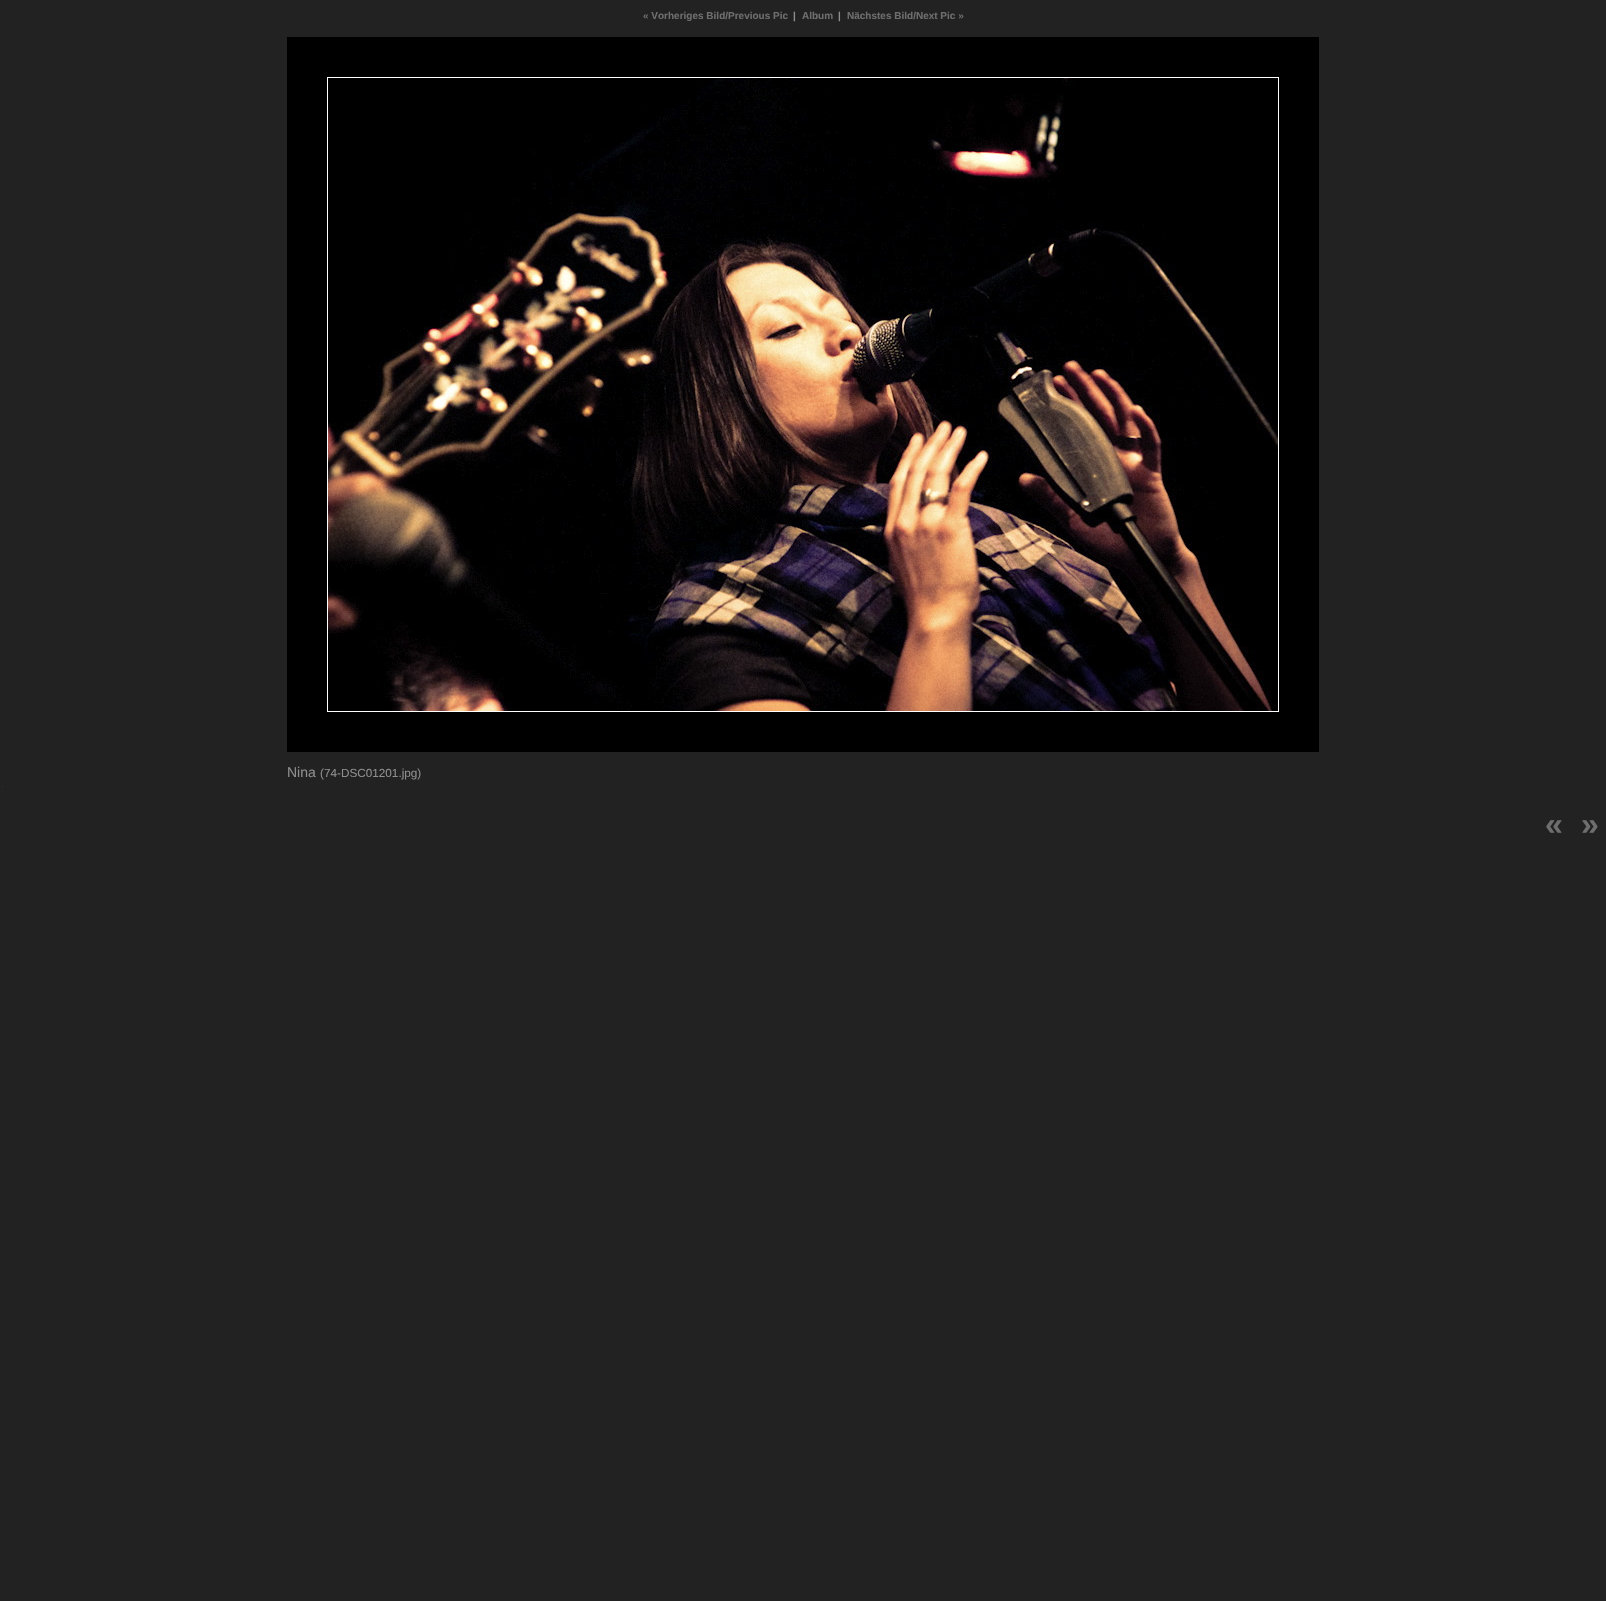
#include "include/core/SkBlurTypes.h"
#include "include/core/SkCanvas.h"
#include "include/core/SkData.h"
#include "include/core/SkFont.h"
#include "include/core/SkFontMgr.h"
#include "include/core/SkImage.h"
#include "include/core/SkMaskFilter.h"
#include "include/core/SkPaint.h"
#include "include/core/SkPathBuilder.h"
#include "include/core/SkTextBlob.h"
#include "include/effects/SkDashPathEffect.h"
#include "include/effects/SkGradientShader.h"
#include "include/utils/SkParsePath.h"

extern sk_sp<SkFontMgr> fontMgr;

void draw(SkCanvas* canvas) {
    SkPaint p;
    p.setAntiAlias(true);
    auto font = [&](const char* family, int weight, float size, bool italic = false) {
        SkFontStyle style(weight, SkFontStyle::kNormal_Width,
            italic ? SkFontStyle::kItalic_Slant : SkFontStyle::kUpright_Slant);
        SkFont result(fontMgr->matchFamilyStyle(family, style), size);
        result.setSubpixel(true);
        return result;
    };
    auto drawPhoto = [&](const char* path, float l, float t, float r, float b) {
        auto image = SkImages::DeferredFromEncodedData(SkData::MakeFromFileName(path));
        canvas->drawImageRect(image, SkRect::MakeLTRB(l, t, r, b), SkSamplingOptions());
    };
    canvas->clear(0xFF222222);
    auto font1 = font("Liberation Sans", 700, 10);
    p.setColor(0xFF6E6E6E);
    canvas->drawString("« Vorheriges Bild/Previous Pic", 643, 19, font1, p);
    p.setColor(0xFF8E8E8E);
    canvas->drawString("|", 793, 19, font1, p);
    p.setColor(0xFF6E6E6E);
    canvas->drawString("Album", 802, 19, font1, p);
    p.setColor(0xFF8E8E8E);
    canvas->drawString("|", 838, 19, font1, p);
    p.setColor(0xFF6E6E6E);
    canvas->drawString("Nächstes Bild/Next Pic »", 847, 19, font1, p);
    p.setColor(0xFFFFFFFF);
    canvas->drawRect(SkRect::MakeLTRB(307, 57, 1299, 732), p);
    p.setStyle(SkPaint::kStroke_Style);
    p.setStrokeWidth(40);
    p.setColor(0xFF000000);
    canvas->drawRect(SkRect::MakeLTRB(307, 57, 1299, 732), p);
    drawPhoto("media/1.png", 328, 78, 1278, 711);
    auto font2 = font("Liberation Sans", 400, 14);
    p.setStyle(SkPaint::kFill_Style);
    p.setColor(0xFF8E8E8E);
    canvas->drawString("Nina", 287, 777, font2, p);
    auto font3 = font("Liberation Sans", 400, 11.75f);
    canvas->drawString("(74-DSC01201.jpg)", 320, 777, font3, p);
    p.setColor(0xFF3E2F26);
    canvas->drawRect(SkRect::MakeLTRB(2, 786, 3, 787), p);
    auto font4 = font("Liberation Sans", 700, 32);
    p.setColor(0xFF6E6E6E);
    canvas->drawString("«", 1545, 835, font4, p);
    canvas->drawString("»", 1581, 835, font4, p);
}
